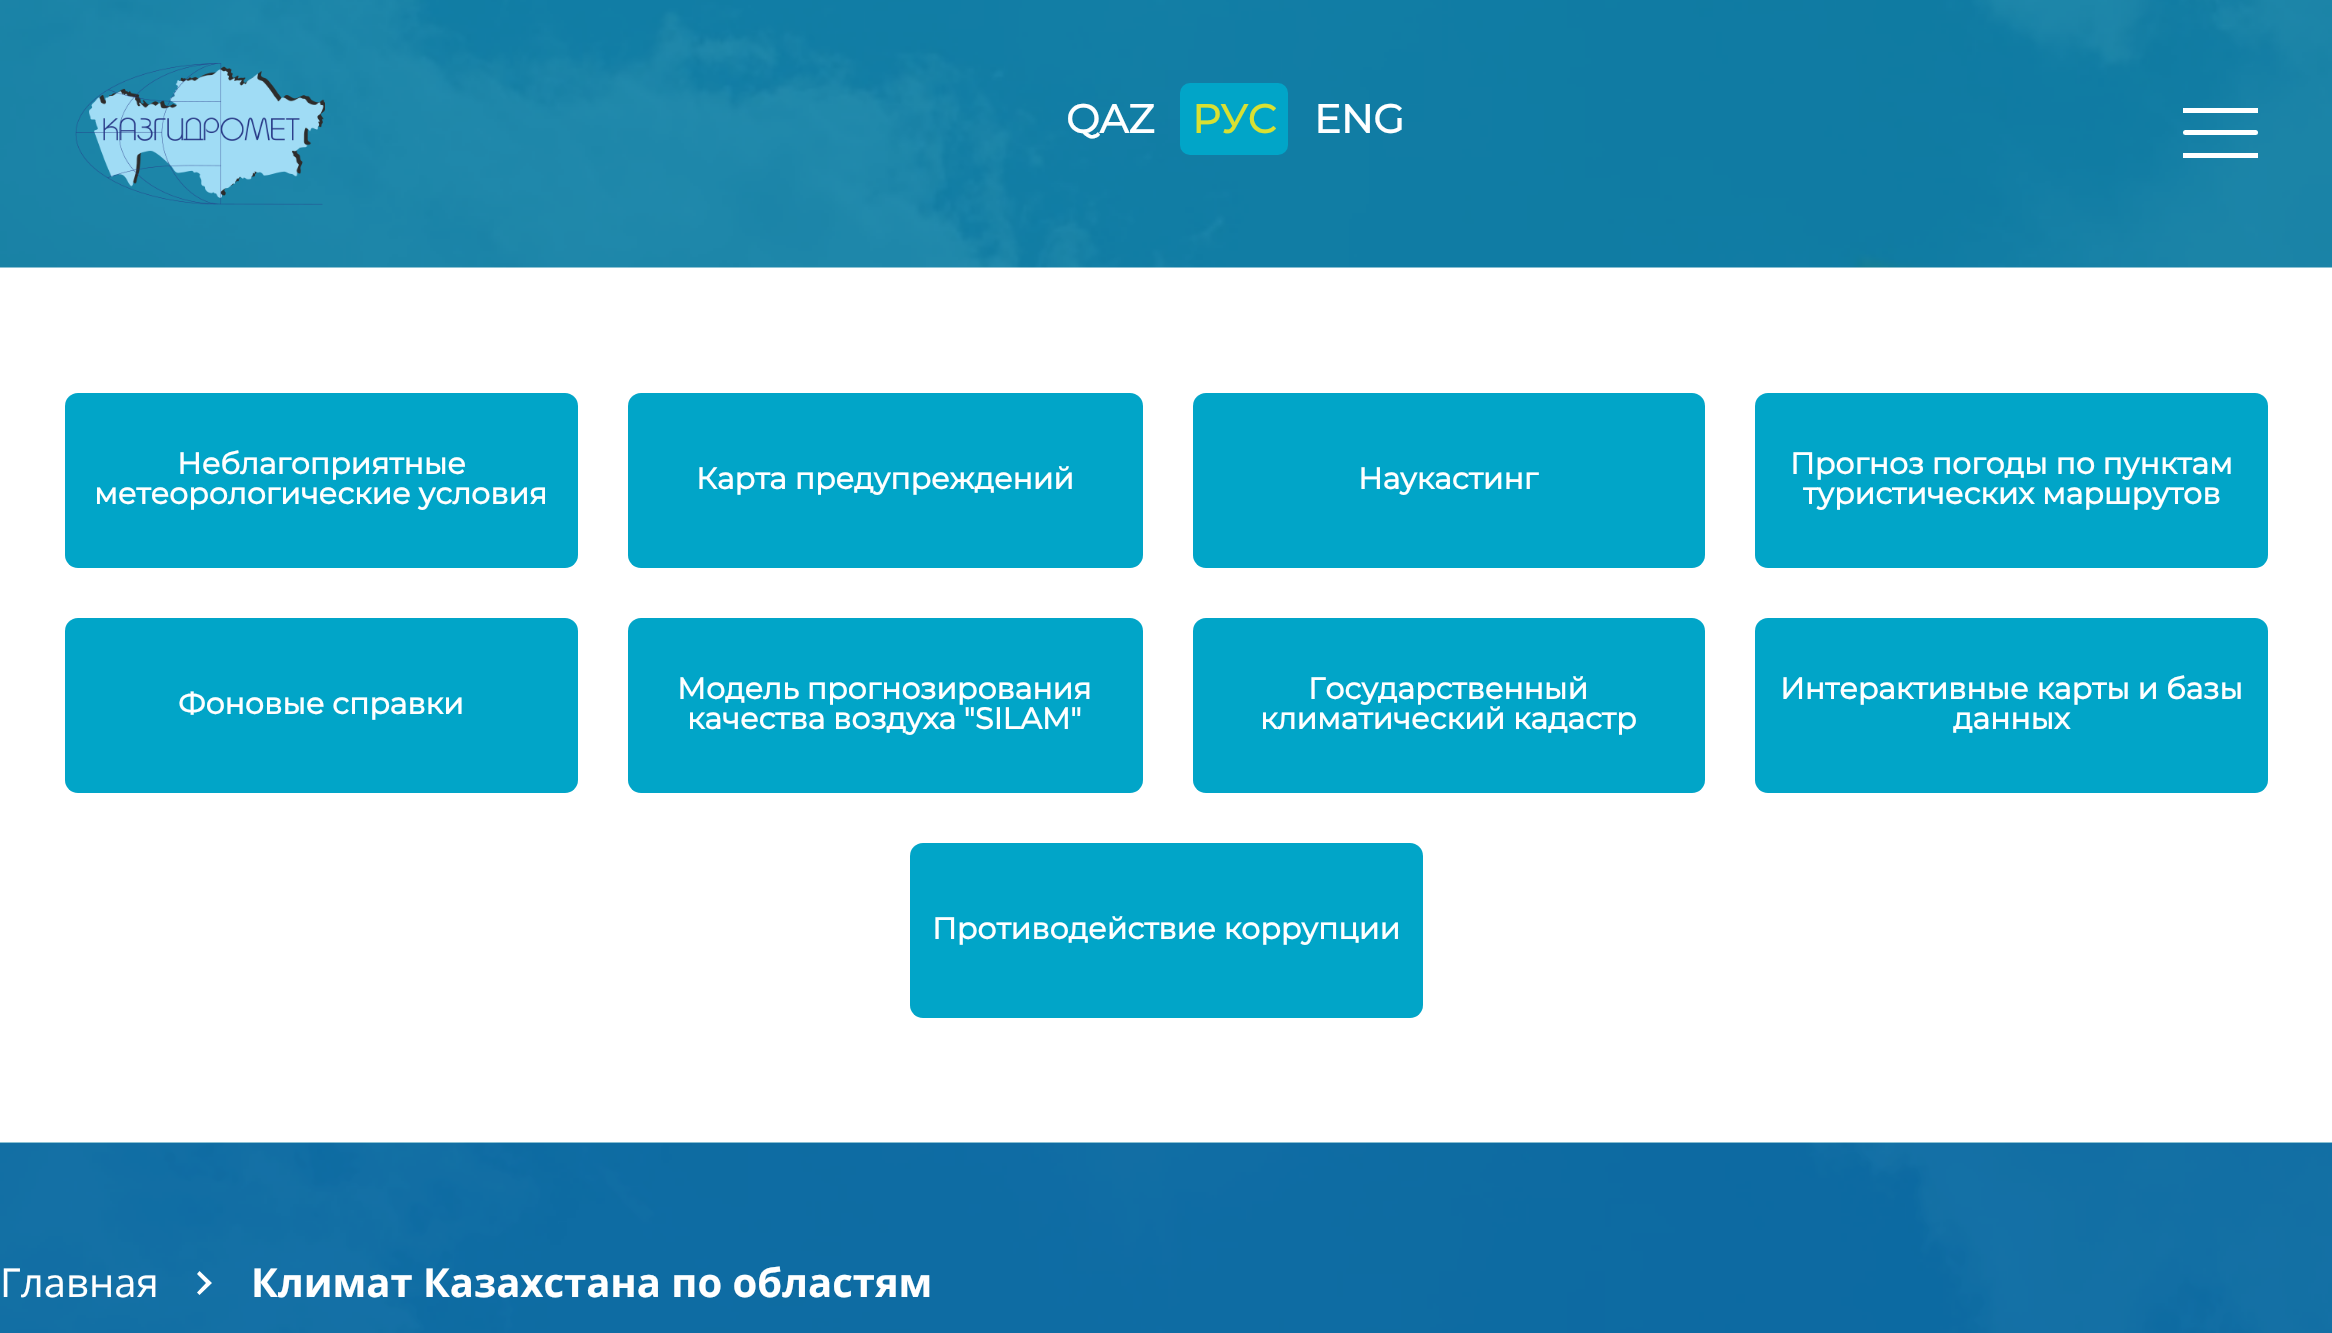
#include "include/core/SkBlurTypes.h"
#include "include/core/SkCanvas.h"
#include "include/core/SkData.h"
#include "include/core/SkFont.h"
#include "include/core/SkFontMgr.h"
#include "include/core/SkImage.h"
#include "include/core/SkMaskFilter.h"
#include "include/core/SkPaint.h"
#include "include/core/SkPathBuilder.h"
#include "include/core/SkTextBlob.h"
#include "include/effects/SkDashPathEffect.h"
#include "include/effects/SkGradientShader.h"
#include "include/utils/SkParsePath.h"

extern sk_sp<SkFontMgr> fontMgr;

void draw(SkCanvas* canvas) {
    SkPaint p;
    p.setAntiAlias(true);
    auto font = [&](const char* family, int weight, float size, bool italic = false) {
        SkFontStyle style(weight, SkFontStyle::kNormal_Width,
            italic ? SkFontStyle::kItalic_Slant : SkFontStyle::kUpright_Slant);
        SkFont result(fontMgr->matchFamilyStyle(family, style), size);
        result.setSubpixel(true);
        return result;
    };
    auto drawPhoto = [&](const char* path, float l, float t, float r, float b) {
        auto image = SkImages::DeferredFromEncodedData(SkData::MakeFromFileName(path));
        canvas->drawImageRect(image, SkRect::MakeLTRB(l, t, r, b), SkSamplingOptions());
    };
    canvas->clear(0xFFFFFFFF);
    drawPhoto("media/1.png", 0, 0, 2332, 268);
    drawPhoto("media/2.png", 75, 63, 325, 205);
    auto font1 = font("Montserrat", 700, 40);
    p.setColor(0xFFFFFFFF);
    canvas->drawString("QAZ", 1066, 133, font1, p);
    p.setColor(0xFF01A5C8);
    canvas->drawRoundRect(SkRect::MakeLTRB(1180, 83, 1288, 155), 10, 10, p);
    p.setColor(0xFFD8E032);
    canvas->drawString("РУС", 1192, 133, font1, p);
    p.setColor(0xFFFFFFFF);
    canvas->drawString("ENG", 1314, 133, font1, p);
    canvas->drawRect(SkRect::MakeLTRB(2183, 108, 2258, 113), p);
    canvas->drawRoundRect(SkRect::MakeLTRB(2183, 130, 2258, 135), 2.5f, 2.5f, p);
    canvas->drawRect(SkRect::MakeLTRB(2183, 153, 2258, 158), p);
    p.setColor(0xFF01A5C8);
    canvas->drawRoundRect(SkRect::MakeLTRB(65, 393, 578, 568), 13, 13, p);
    auto font2 = font("Montserrat", 700, 30);
    p.setColor(0xFFFFFFFF);
    canvas->drawString("Неблагоприятные", 177, 474, font2, p);
    canvas->drawString("метеорологические условия", 94, 504, font2, p);
    p.setColor(0xFF01A5C8);
    canvas->drawRoundRect(SkRect::MakeLTRB(628, 393, 1143, 568), 13, 13, p);
    p.setColor(0xFFFFFFFF);
    canvas->drawString("Карта предупреждений", 696, 489, font2, p);
    p.setColor(0xFF01A5C8);
    canvas->drawRoundRect(SkRect::MakeLTRB(1193, 393, 1705, 568), 13, 13, p);
    p.setColor(0xFFFFFFFF);
    canvas->drawString("Наукастинг", 1358, 489, font2, p);
    p.setColor(0xFF01A5C8);
    canvas->drawRoundRect(SkRect::MakeLTRB(1755, 393, 2268, 568), 13, 13, p);
    p.setColor(0xFFFFFFFF);
    canvas->drawString("Прогноз погоды по пунктам", 1790, 474, font2, p);
    canvas->drawString("туристических маршрутов", 1803, 504, font2, p);
    p.setColor(0xFF01A5C8);
    canvas->drawRoundRect(SkRect::MakeLTRB(65, 618, 578, 793), 13, 13, p);
    p.setColor(0xFFFFFFFF);
    canvas->drawString("Фоновые справки", 178, 714, font2, p);
    p.setColor(0xFF01A5C8);
    canvas->drawRoundRect(SkRect::MakeLTRB(628, 618, 1143, 793), 13, 13, p);
    p.setColor(0xFFFFFFFF);
    canvas->drawString("Модель прогнозирования", 677, 699, font2, p);
    canvas->drawString("качества воздуха \"SILAM\"", 687, 729, font2, p);
    p.setColor(0xFF01A5C8);
    canvas->drawRoundRect(SkRect::MakeLTRB(1193, 618, 1705, 793), 13, 13, p);
    p.setColor(0xFFFFFFFF);
    canvas->drawString("Государственный", 1308, 699, font2, p);
    canvas->drawString("климатический кадастр", 1260, 729, font2, p);
    p.setColor(0xFF01A5C8);
    canvas->drawRoundRect(SkRect::MakeLTRB(1755, 618, 2268, 793), 13, 13, p);
    p.setColor(0xFFFFFFFF);
    canvas->drawString("Интерактивные карты и базы", 1780, 699, font2, p);
    canvas->drawString("данных", 1953, 729, font2, p);
    p.setColor(0xFF01A5C8);
    canvas->drawRoundRect(SkRect::MakeLTRB(910, 843, 1423, 1018), 13, 13, p);
    p.setColor(0xFFFFFFFF);
    canvas->drawString("Противодействие коррупции", 932, 939, font2, p);
    drawPhoto("media/3.png", 0, 1142, 2332, 1333);
    auto font3 = font("Open Sans", 400, 40);
    canvas->drawString("Главная", 0, 1297, font3, p);
    canvas->drawPath(SkPathBuilder().moveTo(197, 1292.5f).lineTo(206, 1283).lineTo(197, 1274).lineTo(199.5f, 1271).lineTo(212, 1283).lineTo(199.5f, 1295).close().detach(), p);
    auto font4 = font("Open Sans", 700, 40);
    canvas->drawString("Климат Казахстана по областям", 251, 1297, font4, p);
}
